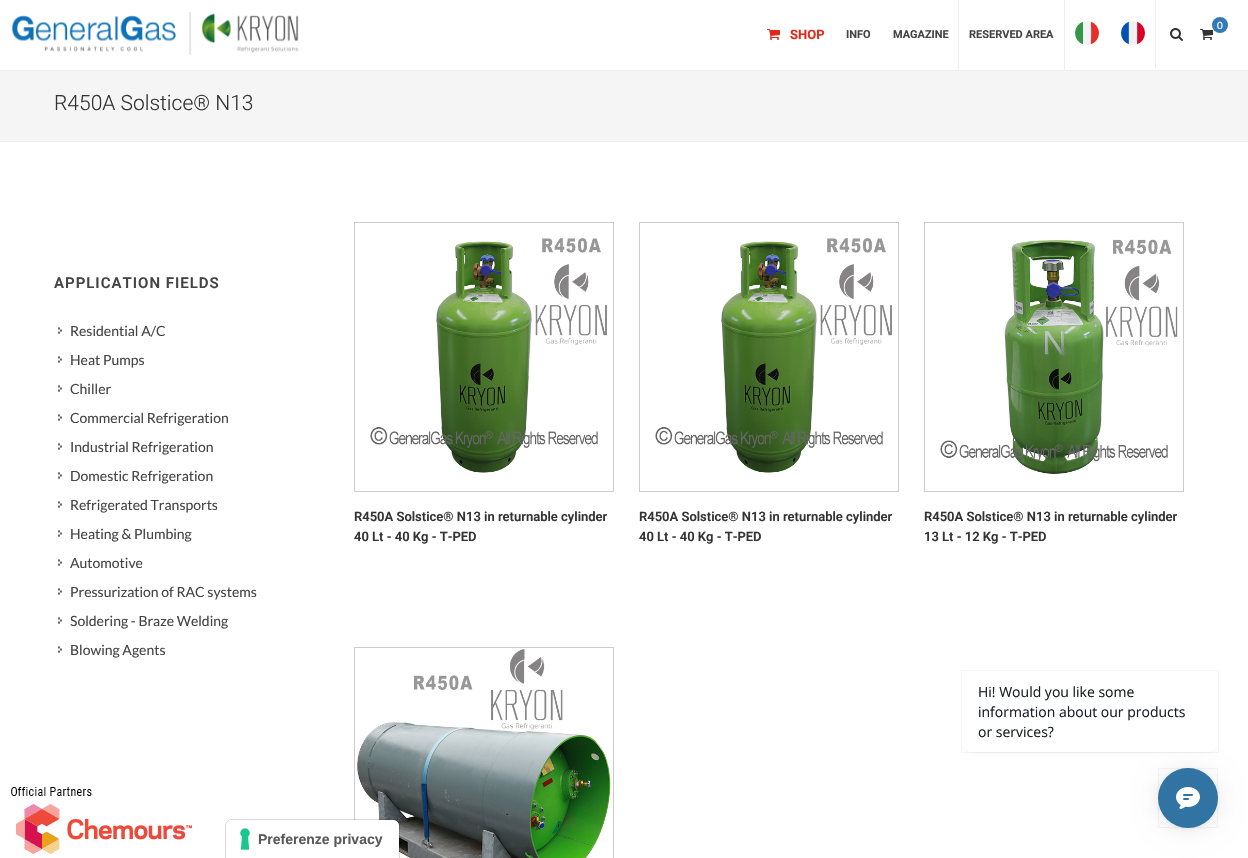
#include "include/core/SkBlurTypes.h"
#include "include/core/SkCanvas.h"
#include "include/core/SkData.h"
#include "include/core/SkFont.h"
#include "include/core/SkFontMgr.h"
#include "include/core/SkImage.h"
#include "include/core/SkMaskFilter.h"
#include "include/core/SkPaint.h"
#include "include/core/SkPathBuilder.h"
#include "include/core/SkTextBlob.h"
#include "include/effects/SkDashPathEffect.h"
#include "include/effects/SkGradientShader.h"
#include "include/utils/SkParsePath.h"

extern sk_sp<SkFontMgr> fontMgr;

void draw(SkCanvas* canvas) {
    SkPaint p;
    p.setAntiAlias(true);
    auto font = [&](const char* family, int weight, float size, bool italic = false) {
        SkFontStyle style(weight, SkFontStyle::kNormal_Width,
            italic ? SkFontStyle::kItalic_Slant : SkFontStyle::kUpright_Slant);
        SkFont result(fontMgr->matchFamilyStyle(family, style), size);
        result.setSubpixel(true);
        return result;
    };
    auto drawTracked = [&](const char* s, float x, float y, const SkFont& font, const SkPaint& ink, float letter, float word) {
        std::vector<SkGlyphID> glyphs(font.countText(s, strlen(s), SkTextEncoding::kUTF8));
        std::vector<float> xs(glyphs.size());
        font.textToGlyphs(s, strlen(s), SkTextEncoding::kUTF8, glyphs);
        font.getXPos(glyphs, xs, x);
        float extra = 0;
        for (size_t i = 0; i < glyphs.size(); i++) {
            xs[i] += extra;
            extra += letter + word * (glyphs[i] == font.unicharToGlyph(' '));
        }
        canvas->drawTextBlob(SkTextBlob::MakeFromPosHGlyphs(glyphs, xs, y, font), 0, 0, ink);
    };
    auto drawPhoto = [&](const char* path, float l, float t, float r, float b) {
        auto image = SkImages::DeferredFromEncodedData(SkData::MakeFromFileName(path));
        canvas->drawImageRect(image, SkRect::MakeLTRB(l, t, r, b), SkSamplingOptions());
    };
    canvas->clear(0xFFFFFFFF);
    p.setColor(0xFFEEEEEE);
    canvas->drawRect(SkRect::MakeLTRB(0, 70, 1248, 71), p);
    drawPhoto("media/1.png", 11, 12, 299, 55);
    canvas->drawRect(SkRect::MakeLTRB(1155, 0, 1156, 68), p);
    drawPhoto("media/2.png", 1075, 21, 1099, 45);
    drawPhoto("media/3.png", 1121, 21, 1145, 45);
    drawPhoto("media/4.png", 1200, 29, 1213, 40);
    p.setColor(0xFF337AB7);
    canvas->drawCircle(1220, 25, 8, p);
    auto font1 = font("Lato", 400, 10);
    p.setColor(0xFFFFFFFF);
    canvas->drawString("0", 1217, 29, font1, p);
    drawPhoto("media/5.png", 1170, 28, 1183, 41);
    p.setColor(0xFFEEEEEE);
    canvas->drawRect(SkRect::MakeLTRB(958, 0, 959, 70), p);
    drawPhoto("media/6.png", 767, 29, 780, 40);
    auto font2 = font("Roboto", 700, 13);
    p.setColor(0xFFE22819);
    canvas->drawString("SHOP", 790, 39, font2, p);
    auto font3 = font("Roboto", 700, 11);
    p.setColor(0xFF444444);
    canvas->drawString("INFO", 846, 38, font3, p);
    canvas->drawString("MAGAZINE", 893, 38, font3, p);
    p.setColor(0xFFEEEEEE);
    canvas->drawRect(SkRect::MakeLTRB(1064, 0, 1065, 70), p);
    p.setColor(0xFF444444);
    canvas->drawString("RESERVED AREA", 969, 38, font3, p);
    drawPhoto("media/7.png", 11, 787, 192, 854);
    p.setColor(0xFFF5F5F5);
    canvas->drawRect(SkRect::MakeLTRB(0, 71, 1248, 141), p);
    p.setColor(0xFFEEEEEE);
    canvas->drawRect(SkRect::MakeLTRB(0, 141, 1248, 142), p);
    auto font4 = font("Roboto", 300, 21);
    p.setColor(0xFF333333);
    canvas->drawString("R450A Solstice® N13", 54, 110, font4, p);
    auto font5 = font("Roboto", 600, 15);
    p.setColor(0xFF444444);
    drawTracked("APPLICATION FIELDS", 54, 288, font5, p, 1, 0);
    drawPhoto("media/8.png", 58, 327, 62, 334);
    auto font6 = font("Lato", 400, 14);
    canvas->drawString("Residential A/C", 70, 336, font6, p);
    drawPhoto("media/8.png", 58, 356, 62, 363);
    canvas->drawString("Heat Pumps", 70, 365, font6, p);
    drawPhoto("media/8.png", 58, 385, 62, 392);
    canvas->drawString("Chiller", 70, 394, font6, p);
    drawPhoto("media/8.png", 58, 414, 62, 421);
    canvas->drawString("Commercial Refrigeration", 70, 423, font6, p);
    drawPhoto("media/8.png", 58, 443, 62, 450);
    canvas->drawString("Industrial Refrigeration", 70, 452, font6, p);
    drawPhoto("media/8.png", 58, 472, 62, 479);
    canvas->drawString("Domestic Refrigeration", 70, 481, font6, p);
    drawPhoto("media/8.png", 58, 501, 62, 508);
    canvas->drawString("Refrigerated Transports", 70, 510, font6, p);
    drawPhoto("media/8.png", 58, 530, 62, 537);
    canvas->drawString("Heating & Plumbing", 70, 539, font6, p);
    drawPhoto("media/8.png", 58, 559, 62, 566);
    canvas->drawString("Automotive", 70, 568, font6, p);
    drawPhoto("media/8.png", 58, 588, 62, 595);
    canvas->drawString("Pressurization of RAC systems", 70, 597, font6, p);
    drawPhoto("media/8.png", 58, 617, 62, 624);
    canvas->drawString("Soldering - Braze Welding", 70, 626, font6, p);
    drawPhoto("media/8.png", 58, 646, 62, 653);
    canvas->drawString("Blowing Agents", 70, 655, font6, p);
    p.setStyle(SkPaint::kStroke_Style);
    p.setStrokeWidth(1);
    p.setColor(0xFFCCCCCC);
    canvas->drawRect(SkRect::MakeLTRB(354.5f, 222.5f, 613.5f, 491.5f), p);
    drawPhoto("media/9.png", 370, 238, 607, 473);
    auto font7 = font("Roboto", 600, 13);
    p.setStyle(SkPaint::kFill_Style);
    p.setColor(0xFF333333);
    canvas->drawString("R450A Solstice® N13 in returnable cylinder", 354, 521, font7, p);
    canvas->drawString("40 Lt - 40 Kg - T-PED", 354, 541, font7, p);
    p.setStyle(SkPaint::kStroke_Style);
    p.setColor(0xFFCCCCCC);
    canvas->drawRect(SkRect::MakeLTRB(639.5f, 222.5f, 898.5f, 491.5f), p);
    drawPhoto("media/10.png", 655, 238, 892, 473);
    p.setStyle(SkPaint::kFill_Style);
    p.setColor(0xFF333333);
    canvas->drawString("R450A Solstice® N13 in returnable cylinder", 639, 521, font7, p);
    canvas->drawString("40 Lt - 40 Kg - T-PED", 639, 541, font7, p);
    p.setStyle(SkPaint::kStroke_Style);
    p.setColor(0xFFCCCCCC);
    canvas->drawRect(SkRect::MakeLTRB(924.5f, 222.5f, 1183.5f, 491.5f), p);
    drawPhoto("media/11.png", 940, 239, 1178, 474);
    p.setStyle(SkPaint::kFill_Style);
    p.setColor(0xFF333333);
    canvas->drawString("R450A Solstice® N13 in returnable cylinder", 924, 521, font7, p);
    canvas->drawString("13 Lt - 12 Kg - T-PED", 924, 541, font7, p);
    p.setStyle(SkPaint::kStroke_Style);
    p.setColor(0xFFCCCCCC);
    canvas->drawRect(SkRect::MakeLTRB(354.5f, 647.5f, 613.5f, 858.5f), p);
    drawPhoto("media/12.png", 357, 649, 611, 858);
    p.setStyle(SkPaint::kFill_Style);
    p.setColor(0x14000000);
    p.setMaskFilter(SkMaskFilter::MakeBlur(kNormal_SkBlurStyle, 12));
    canvas->drawRoundRect(SkRect::MakeLTRB(1158, 770, 1218, 830), 30, 30, p);
    p.setMaskFilter(nullptr);
    p.setColor(0xFFFAFAFA);
    canvas->drawPath(SkPathBuilder().moveTo(962, 742).lineTo(962, 743).cubicTo(962, 749, 966, 753, 972, 753).lineTo(1208, 753).cubicTo(1214, 753, 1218, 749, 1218, 743).lineTo(1218, 742).cubicTo(1218, 748, 1214, 752, 1208, 752).lineTo(972, 752).cubicTo(966, 752, 962, 748, 962, 742).close().detach(), p);
    p.setStyle(SkPaint::kStroke_Style);
    p.setColor(0x0A161A1E);
    canvas->drawRect(SkRect::MakeLTRB(961.5f, 670.5f, 1218.5f, 752.5f), p);
    p.setStyle(SkPaint::kFill_Style);
    p.setColor(0x14161A1E);
    p.setMaskFilter(SkMaskFilter::MakeBlur(kNormal_SkBlurStyle, 4));
    canvas->drawRoundRect(SkRect::MakeLTRB(968, 681, 1212, 750), 4, 4, p);
    p.setMaskFilter(nullptr);
    p.setColor(0xFFFFFFFF);
    canvas->drawRoundRect(SkRect::MakeLTRB(962, 671, 1218, 752), 10, 10, p);
    auto font8 = font("Open Sans", 400, 14);
    p.setColor(0xFF1A1E23);
    {
        const struct { const char* s; float x, y; } items[] = {
            {"Hi! Would you like some", 978, 697},
            {"information about our products", 978, 717},
            {"or services?", 978, 737},
        };
        for (auto [s, x, y] : items) {
            canvas->drawString(s, x, y, font8, p);
        }
    }
    p.setColor(0x0F000000);
    p.setMaskFilter(SkMaskFilter::MakeBlur(kNormal_SkBlurStyle, 3));
    canvas->drawRoundRect(SkRect::MakeLTRB(1158, 769, 1218, 829), 30, 30, p);
    p.setMaskFilter(nullptr);
    p.setColor(0xFF3173A2);
    canvas->drawCircle(1188, 798, 30, p);
    p.setStyle(SkPaint::kStroke_Style);
    p.setColor(0x0A000000);
    canvas->drawRect(SkRect::MakeLTRB(1158.5f, 768.5f, 1217.5f, 827.5f), p);
    drawPhoto("media/13.png", 1176, 787, 1200, 809);
    p.setColor(0x26000000);
    canvas->drawPath(SkPathBuilder().moveTo(232, 819.5f).lineTo(393, 819.5f).cubicTo(396.5f, 819.5f, 399.5f, 822.5f, 399.5f, 826).lineTo(399.5f, 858.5f).lineTo(225.5f, 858.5f).lineTo(225.5f, 826).cubicTo(225.5f, 822.5f, 228.5f, 819.5f, 232, 819.5f).close().detach(), p);
    p.setStyle(SkPaint::kFill_Style);
    p.setColor(0xFFFFFFFF);
    canvas->drawPath(SkPathBuilder().moveTo(232, 820).lineTo(393, 820).cubicTo(396.5f, 820, 399, 822.5f, 399, 826).lineTo(399, 858).lineTo(226, 858).lineTo(226, 826).cubicTo(226, 822.5f, 228.5f, 820, 232, 820).close().detach(), p);
    drawPhoto("media/14.png", 240, 828, 250, 850);
    auto font9 = font("Liberation Sans", 700, 14);
    p.setColor(0xFF595959);
    canvas->drawString("Preferenze privacy", 258, 844, font9, p);
}
